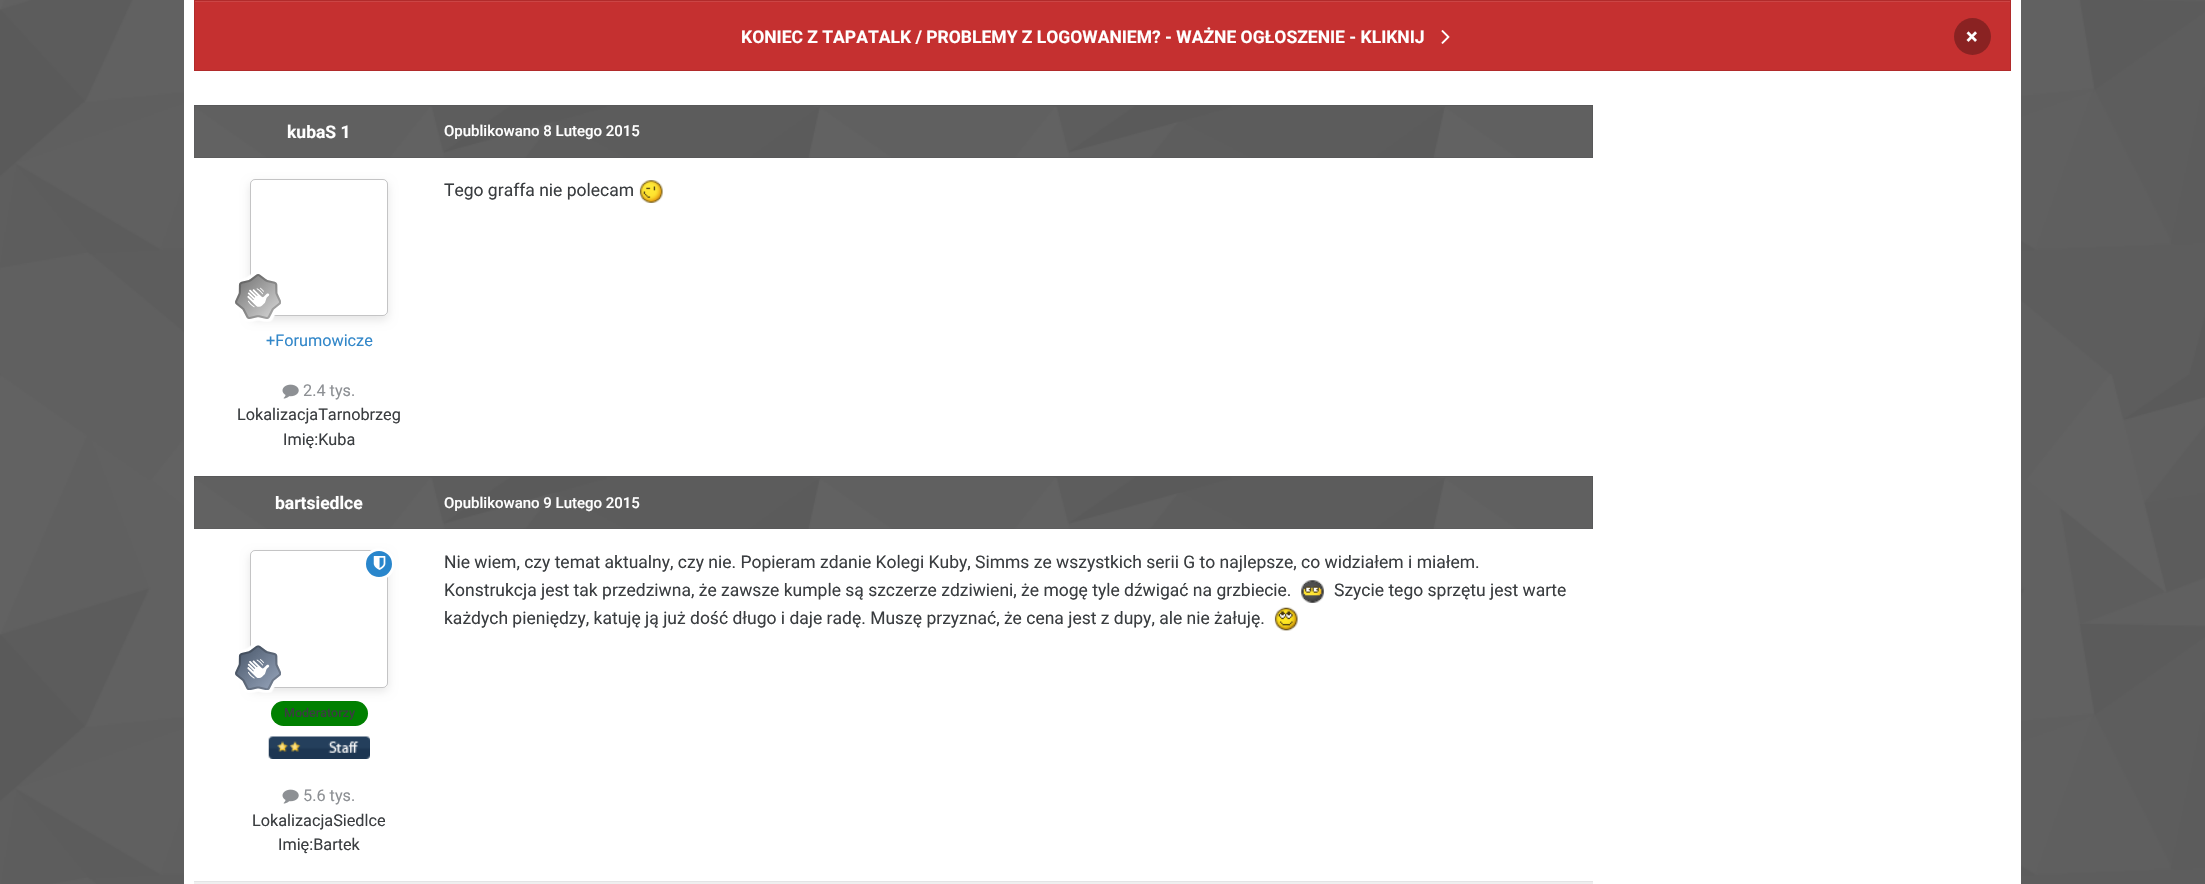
#include "include/core/SkBlurTypes.h"
#include "include/core/SkCanvas.h"
#include "include/core/SkData.h"
#include "include/core/SkFont.h"
#include "include/core/SkFontMgr.h"
#include "include/core/SkImage.h"
#include "include/core/SkMaskFilter.h"
#include "include/core/SkPaint.h"
#include "include/core/SkPathBuilder.h"
#include "include/core/SkTextBlob.h"
#include "include/effects/SkDashPathEffect.h"
#include "include/effects/SkGradientShader.h"
#include "include/utils/SkParsePath.h"

extern sk_sp<SkFontMgr> fontMgr;

void draw(SkCanvas* canvas) {
    SkPaint p;
    p.setAntiAlias(true);
    auto font = [&](const char* family, int weight, float size, bool italic = false) {
        SkFontStyle style(weight, SkFontStyle::kNormal_Width,
            italic ? SkFontStyle::kItalic_Slant : SkFontStyle::kUpright_Slant);
        SkFont result(fontMgr->matchFamilyStyle(family, style), size);
        result.setSubpixel(true);
        return result;
    };
    auto drawPhoto = [&](const char* path, float l, float t, float r, float b) {
        auto image = SkImages::DeferredFromEncodedData(SkData::MakeFromFileName(path));
        canvas->drawImageRect(image, SkRect::MakeLTRB(l, t, r, b), SkSamplingOptions());
    };
    canvas->clear(0xFF5B5B5B);
    drawPhoto("media/1.png", 0, 0, 2205, 884);
    {
        const struct { float l, t, r, b; SkColor color; } items[] = {
            {184, 0, 2021, 884, 0xFFFFFFFF},
            {195, 2, 2010, 70, 0xFFC53030},
            {195, 1, 2010, 2, 0xFFCB4545},
        };
        for (auto [l, t, r, b, color] : items) {
            p.setColor(color);
            canvas->drawRect(SkRect::MakeLTRB(l, t, r, b), p);
        }
    }
    p.setStyle(SkPaint::kStroke_Style);
    p.setStrokeWidth(1);
    p.setColor(0xFFB12B2B);
    canvas->drawRect(SkRect::MakeLTRB(194.5f, 0.5f, 2010.5f, 70.5f), p);
    auto font1 = font("Roboto", 700, 17.5f);
    p.setStyle(SkPaint::kFill_Style);
    p.setColor(0xFFFFFFFF);
    canvas->drawString("KONIEC Z TAPATALK / PROBLEMY Z LOGOWANIEM? - WAŻNE OGŁOSZENIE - KLIKNIJ", 741, 43, font1, p);
    drawPhoto("media/2.png", 1441, 30, 1450, 44);
    p.setColor(0xFF8A2222);
    canvas->drawCircle(1972.5f, 36.5f, 18.5f, p);
    auto font2 = font("Roboto", 700, 22);
    p.setColor(0xFFFFFFFF);
    canvas->drawString("×", 1966, 44, font2, p);
    p.setColor(0xFF5B5B5B);
    canvas->drawRect(SkRect::MakeLTRB(194, 105, 1593, 158), p);
    drawPhoto("media/3.png", 194, 106, 1592, 158);
    p.setStyle(SkPaint::kStroke_Style);
    p.setColor(0x1A3A3D40);
    canvas->drawRect(SkRect::MakeLTRB(194.5f, 105.5f, 1592.5f, 157.5f), p);
    p.setStyle(SkPaint::kFill_Style);
    p.setColor(0xFFFFFFFF);
    canvas->drawString("kubaS 1", 287, 138, font1, p);
    canvas->save();
    canvas->clipPath(SkPathBuilder(SkPathFillType::kEvenOdd).moveTo(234, 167).lineTo(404, 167).lineTo(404, 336).lineTo(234, 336).close().moveTo(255, 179).lineTo(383, 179).cubicTo(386, 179, 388, 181, 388, 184).lineTo(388, 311).cubicTo(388, 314, 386, 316, 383, 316).lineTo(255, 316).cubicTo(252, 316, 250, 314, 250, 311).lineTo(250, 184).cubicTo(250, 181, 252, 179, 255, 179).close().detach(), true);
    p.setColor(0x1A000000);
    p.setMaskFilter(SkMaskFilter::MakeBlur(kNormal_SkBlurStyle, 5));
    canvas->drawRoundRect(SkRect::MakeLTRB(250, 183, 388, 320), 5, 5, p);
    p.setMaskFilter(nullptr);
    canvas->restore();
    p.setStyle(SkPaint::kStroke_Style);
    p.setColor(0x4D3A3D40);
    canvas->drawRoundRect(SkRect::MakeLTRB(250.5f, 179.5f, 387.5f, 315.5f), 4.5f, 4.5f, p);
    drawPhoto("media/4.png", 235, 273, 281, 322);
    auto font3 = font("Roboto", 400, 16.25f);
    p.setStyle(SkPaint::kFill_Style);
    p.setColor(0xFF3287C9);
    canvas->drawString("+Forumowicze", 266, 346, font3, p);
    drawPhoto("media/5.png", 282, 384, 299, 399);
    p.setColor(0xFF8D9094);
    canvas->drawString("2.4 tys.", 303, 396, font3, p);
    p.setColor(0xFF3A3D40);
    canvas->drawString("LokalizacjaTarnobrzeg", 237, 420, font3, p);
    canvas->drawString("Imię:Kuba", 283, 445, font3, p);
    auto font4 = font("Roboto", 500, 15);
    p.setColor(0xFFFFFFFF);
    canvas->drawString("Opublikowano 8 Lutego 2015", 444, 136, font4, p);
    auto font5 = font("Roboto", 400, 17.5f);
    p.setColor(0xFF3A3D40);
    canvas->drawString("Tego graffa nie polecam", 444, 196, font5, p);
    drawPhoto("media/6.png", 639, 180, 663, 203);
    p.setColor(0xFF5B5B5B);
    canvas->drawRect(SkRect::MakeLTRB(194, 476, 1593, 529), p);
    drawPhoto("media/7.png", 194, 477, 1592, 529);
    p.setStyle(SkPaint::kStroke_Style);
    p.setColor(0x1A3A3D40);
    canvas->drawRect(SkRect::MakeLTRB(194.5f, 476.5f, 1592.5f, 528.5f), p);
    p.setStyle(SkPaint::kFill_Style);
    p.setColor(0xFFFFFFFF);
    canvas->drawString("bartsiedlce", 275, 509, font1, p);
    p.setColor(0xFF008000);
    canvas->drawRoundRect(SkRect::MakeLTRB(271, 701, 368, 726), 12.5f, 12.5f, p);
    canvas->save();
    canvas->clipPath(SkPathBuilder(SkPathFillType::kEvenOdd).moveTo(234, 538).lineTo(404, 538).lineTo(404, 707).lineTo(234, 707).close().moveTo(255, 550).lineTo(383, 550).cubicTo(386, 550, 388, 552, 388, 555).lineTo(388, 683).cubicTo(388, 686, 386, 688, 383, 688).lineTo(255, 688).cubicTo(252, 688, 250, 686, 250, 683).lineTo(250, 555).cubicTo(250, 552, 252, 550, 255, 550).close().detach(), true);
    p.setColor(0x1A000000);
    p.setMaskFilter(SkMaskFilter::MakeBlur(kNormal_SkBlurStyle, 5));
    canvas->drawRoundRect(SkRect::MakeLTRB(250, 554, 388, 691), 5, 5, p);
    p.setMaskFilter(nullptr);
    canvas->restore();
    p.setStyle(SkPaint::kStroke_Style);
    p.setColor(0x4D3A3D40);
    canvas->drawRoundRect(SkRect::MakeLTRB(250.5f, 550.5f, 387.5f, 687.5f), 4.5f, 4.5f, p);
    p.setStyle(SkPaint::kFill_Style);
    p.setColor(0xFF2986CC);
    canvas->drawCircle(379, 564, 14.5f, p);
    p.setStyle(SkPaint::kStroke_Style);
    p.setStrokeWidth(3);
    p.setColor(0xFFFFFFFF);
    canvas->drawCircle(379, 564, 14.5f, p);
    drawPhoto("media/8.png", 373, 556, 386, 570);
    drawPhoto("media/9.png", 235, 645, 281, 693);
    auto font6 = font("Roboto", 500, 12.5f);
    p.setStyle(SkPaint::kFill_Style);
    p.setColor(0xFF3A3D40);
    canvas->drawString("Moderatorzy", 284, 717, font6, p);
    drawPhoto("media/10.png", 268, 736, 370, 759);
    drawPhoto("media/5.png", 282, 789, 299, 804);
    p.setColor(0xFF8D9094);
    canvas->drawString("5.6 tys.", 303, 801, font3, p);
    p.setColor(0xFF3A3D40);
    canvas->drawString("LokalizacjaSiedlce", 252, 826, font3, p);
    canvas->drawString("Imię:Bartek", 278, 850, font3, p);
    p.setColor(0xFFFFFFFF);
    canvas->drawString("Opublikowano 9 Lutego 2015", 444, 508, font4, p);
    p.setColor(0xFF3A3D40);
    canvas->drawString("Nie wiem, czy temat aktualny, czy nie. Popieram zdanie Kolegi Kuby, Simms ze wszystkich serii G to najlepsze, co widziałem i miałem.", 444, 568, font5, p);
    canvas->drawString("Konstrukcja jest tak przedziwna, że zawsze kumple są szczerze zdziwieni, że mogę tyle dźwigać na grzbiecie.", 444, 596, font5, p);
    drawPhoto("media/11.png", 1301, 580, 1324, 603);
    canvas->drawString("Szycie tego sprzętu jest warte", 1334, 596, font5, p);
    canvas->drawString("każdych pieniędzy, katuję ją już dość długo i daje radę. Muszę przyznać, że cena jest z dupy, ale nie żałuję.", 444, 624, font5, p);
    drawPhoto("media/12.png", 1274, 607, 1298, 631);
    p.setColor(0xFFEFEFEF);
    canvas->drawRect(SkRect::MakeLTRB(194, 882, 1593, 884), p);
    p.setColor(0xFFE4E4E5);
    canvas->drawRect(SkRect::MakeLTRB(194, 881, 1593, 882), p);
}
